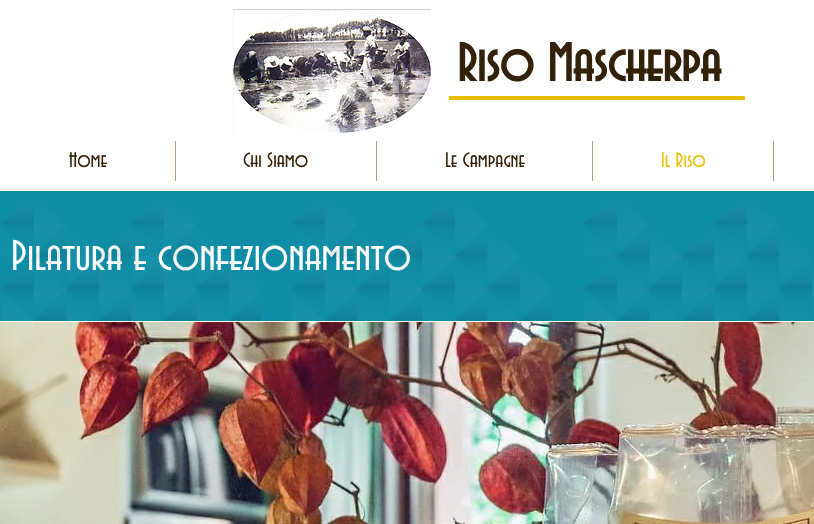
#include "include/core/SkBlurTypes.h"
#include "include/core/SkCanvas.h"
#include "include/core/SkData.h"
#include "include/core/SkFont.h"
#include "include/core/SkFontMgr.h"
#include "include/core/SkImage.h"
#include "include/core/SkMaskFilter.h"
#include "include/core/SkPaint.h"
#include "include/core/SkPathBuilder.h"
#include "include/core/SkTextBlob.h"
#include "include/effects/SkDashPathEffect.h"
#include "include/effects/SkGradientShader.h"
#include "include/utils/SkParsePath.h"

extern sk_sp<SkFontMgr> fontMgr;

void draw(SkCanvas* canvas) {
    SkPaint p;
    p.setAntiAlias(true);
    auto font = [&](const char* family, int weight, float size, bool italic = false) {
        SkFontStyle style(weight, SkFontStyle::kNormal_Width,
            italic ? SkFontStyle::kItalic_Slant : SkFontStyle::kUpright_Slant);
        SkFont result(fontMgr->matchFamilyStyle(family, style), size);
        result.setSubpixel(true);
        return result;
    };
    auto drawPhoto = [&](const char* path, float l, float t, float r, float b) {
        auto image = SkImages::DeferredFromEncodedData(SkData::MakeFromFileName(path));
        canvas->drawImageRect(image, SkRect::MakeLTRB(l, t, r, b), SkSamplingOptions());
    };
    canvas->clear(0xFFFFFFFF);
    drawPhoto("media/1.png", 233, 9, 431, 133);
    auto font1 = font("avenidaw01", 700, 56);
    p.setColor(0xFF342109);
    canvas->drawString("Riso Mascherpa", 457, 81, font1, p);
    p.setColor(0xFFEABD07);
    canvas->drawRect(SkRect::MakeLTRB(449, 96, 745, 100), p);
    auto font2 = font("avenidaw01", 400, 22);
    p.setColor(0xFF342109);
    canvas->drawString("Home", 69, 167, font2, p);
    p.setColor(0xFFB39E82);
    canvas->drawRect(SkRect::MakeLTRB(175, 141, 176, 181), p);
    p.setColor(0xFF342109);
    canvas->drawString("Chi Siamo", 243, 167, font2, p);
    p.setColor(0xFFB39E82);
    canvas->drawRect(SkRect::MakeLTRB(376, 141, 377, 181), p);
    p.setColor(0xFF342109);
    canvas->drawString("Le Campagne", 445, 167, font2, p);
    p.setColor(0xFFB39E82);
    canvas->drawRect(SkRect::MakeLTRB(592, 141, 593, 181), p);
    p.setColor(0xFFEABD07);
    canvas->drawString("Il Riso", 661, 167, font2, p);
    p.setColor(0xFFB39E82);
    canvas->drawRect(SkRect::MakeLTRB(773, 141, 774, 181), p);
    p.setColor(0xFF0F8DA6);
    canvas->drawRect(SkRect::MakeLTRB(0, 191, 814, 321), p);
    auto font3 = font("avenidaw01", 400, 45);
    p.setColor(0xFFFFFFFF);
    canvas->drawString("Pilatura e confezionamento", 11, 270, font3, p);
    drawPhoto("media/2.png", 1, 201, 262, 321);
    drawPhoto("media/3.png", 292, 201, 553, 321);
    drawPhoto("media/4.png", 584, 201, 814, 321);
    drawPhoto("media/5.png", 0, 322, 814, 524);
}
